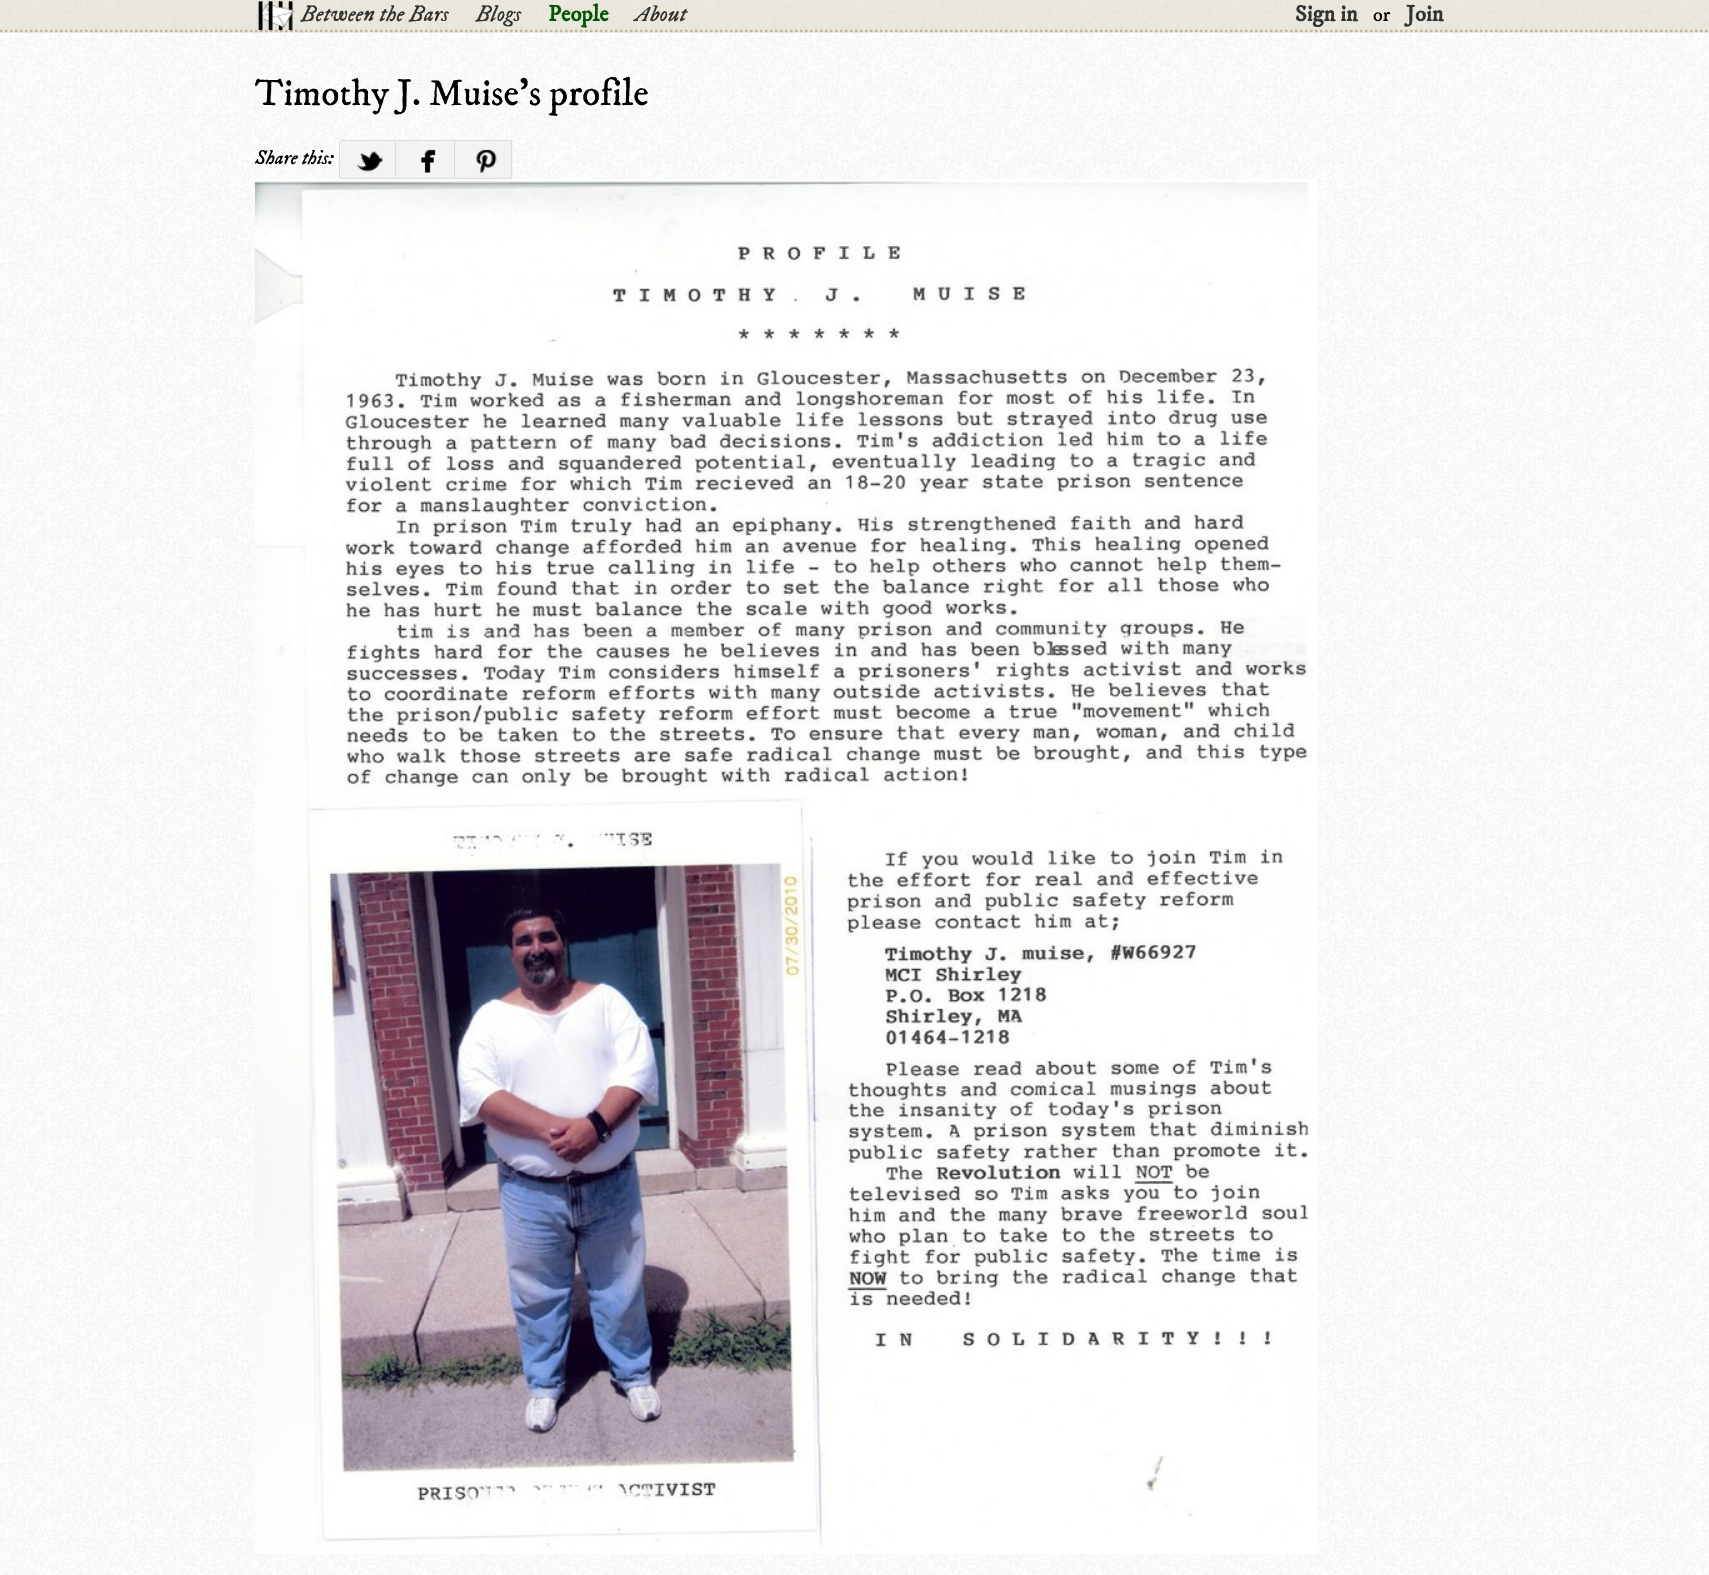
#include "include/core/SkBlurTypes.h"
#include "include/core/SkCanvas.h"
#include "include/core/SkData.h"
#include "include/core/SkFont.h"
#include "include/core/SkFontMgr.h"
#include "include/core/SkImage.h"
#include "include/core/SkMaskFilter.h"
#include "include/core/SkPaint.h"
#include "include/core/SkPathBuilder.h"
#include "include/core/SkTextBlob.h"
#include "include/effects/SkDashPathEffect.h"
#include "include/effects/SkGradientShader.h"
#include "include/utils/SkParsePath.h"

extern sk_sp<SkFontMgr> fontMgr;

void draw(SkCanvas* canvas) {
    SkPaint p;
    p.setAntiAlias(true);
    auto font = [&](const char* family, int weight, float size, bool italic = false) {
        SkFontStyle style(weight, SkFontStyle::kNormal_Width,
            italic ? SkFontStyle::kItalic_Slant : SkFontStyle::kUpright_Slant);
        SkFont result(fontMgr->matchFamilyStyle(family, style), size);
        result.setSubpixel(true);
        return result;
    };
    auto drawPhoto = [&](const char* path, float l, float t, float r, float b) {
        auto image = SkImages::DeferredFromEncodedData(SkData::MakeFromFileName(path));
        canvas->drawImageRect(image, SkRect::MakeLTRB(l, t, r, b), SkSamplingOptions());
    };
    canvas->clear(0xFFFFFFFF);
    drawPhoto("media/1.png", 0, 32, 1709, 1575);
    drawPhoto("media/2.png", 0, 0, 1709, 33);
    p.setStyle(SkPaint::kStroke_Style);
    p.setStrokeWidth(2.5f);
    p.setColor(0xFFC3B399);
    p.setPathEffect(SkDashPathEffect::Make({{2.5f, 2.5f}}, 0));
    canvas->drawPath(SkPathBuilder().moveTo(0, 31).lineTo(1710, 31).detach(), p);
    p.setPathEffect(nullptr);
    drawPhoto("media/3.png", 257, 1, 295, 31);
    auto font1 = font("IM FELL DW Pica", 400, 22.5f, true);
    p.setStyle(SkPaint::kFill_Style);
    p.setColor(0xFF333333);
    canvas->drawString("Between the Bars", 301, 21, font1, p);
    canvas->drawString("Blogs", 476, 21, font1, p);
    auto font2 = font("IM FELL DW Pica", 700, 22.5f);
    p.setColor(0xFF005500);
    canvas->drawString("People", 548, 21, font2, p);
    p.setColor(0xFF333333);
    canvas->drawString("About", 635, 21, font1, p);
    canvas->drawString("Sign in", 1295, 21, font2, p);
    auto font3 = font("IM FELL DW Pica", 400, 20);
    p.setColor(0xFF000000);
    canvas->drawString("or", 1373, 21, font3, p);
    p.setColor(0xFF333333);
    canvas->drawString("Join", 1406, 21, font2, p);
    auto font4 = font("IM FELL DW Pica", 400, 37.5f);
    p.setColor(0xFF000000);
    canvas->drawString("Timothy J. Muise's profile", 255, 105, font4, p);
    auto font5 = font("IM FELL DW Pica", 400, 20, true);
    canvas->drawString("Share this:", 255, 164, font5, p);
    p.setColor(0xFFF3F3F3);
    canvas->drawPath(SkPathBuilder().moveTo(341.5f, 140).lineTo(396, 140).lineTo(396, 179).lineTo(341.5f, 179).cubicTo(340, 179, 339, 178, 339, 176.5f).lineTo(339, 142.5f).cubicTo(339, 141, 340, 140, 341.5f, 140).close().detach(), p);
    drawPhoto("media/4.png", 357, 151, 383, 172);
    p.setStyle(SkPaint::kStroke_Style);
    p.setStrokeWidth(1);
    p.setColor(0xFFDCDCDC);
    canvas->drawPath(SkPathBuilder().moveTo(341.5f, 140.5f).lineTo(395.5f, 140.5f).lineTo(395.5f, 178.5f).lineTo(341.5f, 178.5f).cubicTo(340.5f, 178.5f, 339.5f, 177.5f, 339.5f, 176.5f).lineTo(339.5f, 142.5f).cubicTo(339.5f, 141.5f, 340.5f, 140.5f, 341.5f, 140.5f).close().detach(), p);
    p.setStyle(SkPaint::kFill_Style);
    p.setColor(0xFFF3F3F3);
    canvas->drawRect(SkRect::MakeLTRB(396, 140, 454, 179), p);
    drawPhoto("media/5.png", 421, 149, 436, 173);
    p.setColor(0xFFDCDCDC);
    canvas->drawPath(SkPathBuilder().moveTo(396, 140).lineTo(455, 140).lineTo(454, 141).lineTo(398, 141).close().detach(), p);
    canvas->drawRect(SkRect::MakeLTRB(454, 140, 455, 179), p);
    canvas->drawPath(SkPathBuilder().moveTo(455, 179).lineTo(396, 179).lineTo(398, 178).lineTo(454, 178).close().detach(), p);
    p.setColor(0xFFF3F3F3);
    canvas->drawPath(SkPathBuilder().moveTo(455, 140).lineTo(510.5f, 140).cubicTo(512, 140, 513, 141, 513, 142.5f).lineTo(513, 176.5f).cubicTo(513, 178, 512, 179, 510.5f, 179).lineTo(455, 179).close().detach(), p);
    drawPhoto("media/6.png", 476, 149, 497, 173);
    p.setColor(0xFFDCDCDC);
    canvas->drawPath(SkPathBuilder().moveTo(455, 140).lineTo(456, 141).lineTo(510, 141).lineTo(511, 142).lineTo(512, 141).lineTo(510, 140).close().detach(), p);
    canvas->drawPath(SkPathBuilder().moveTo(511.5f, 141).lineTo(512, 142).lineTo(512, 170.5f).cubicTo(512, 171, 512.5f, 176, 511.5f, 178).lineTo(511, 177).lineTo(511, 141.5f).close().detach(), p);
    canvas->drawPath(SkPathBuilder().moveTo(511, 179).lineTo(455, 179).lineTo(456, 178).lineTo(510, 178).lineTo(511, 177).lineTo(512, 178).close().detach(), p);
    drawPhoto("media/7.png", 255, 179, 1318, 1554);
}
